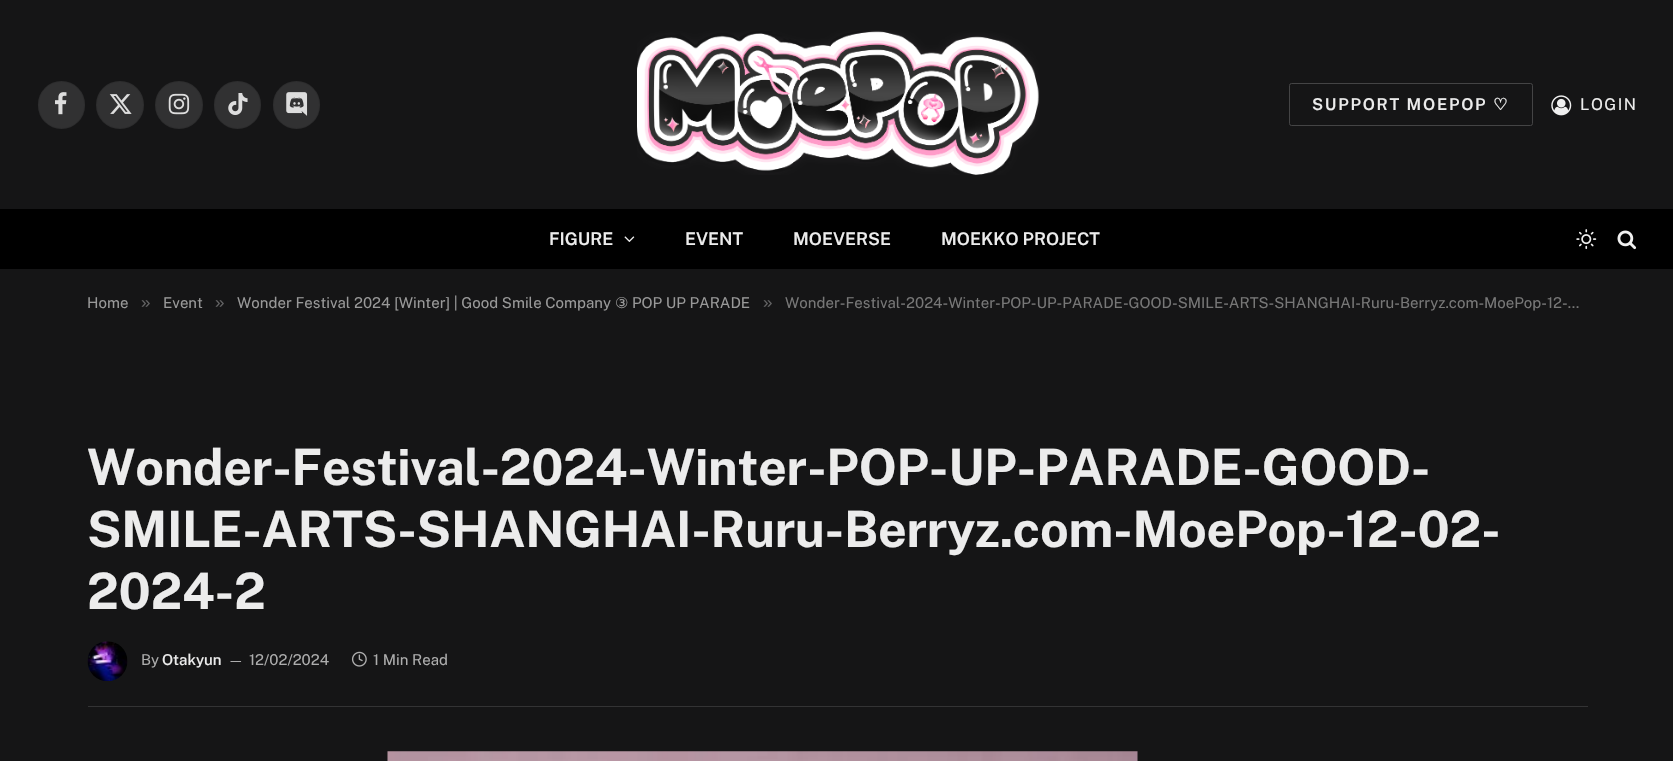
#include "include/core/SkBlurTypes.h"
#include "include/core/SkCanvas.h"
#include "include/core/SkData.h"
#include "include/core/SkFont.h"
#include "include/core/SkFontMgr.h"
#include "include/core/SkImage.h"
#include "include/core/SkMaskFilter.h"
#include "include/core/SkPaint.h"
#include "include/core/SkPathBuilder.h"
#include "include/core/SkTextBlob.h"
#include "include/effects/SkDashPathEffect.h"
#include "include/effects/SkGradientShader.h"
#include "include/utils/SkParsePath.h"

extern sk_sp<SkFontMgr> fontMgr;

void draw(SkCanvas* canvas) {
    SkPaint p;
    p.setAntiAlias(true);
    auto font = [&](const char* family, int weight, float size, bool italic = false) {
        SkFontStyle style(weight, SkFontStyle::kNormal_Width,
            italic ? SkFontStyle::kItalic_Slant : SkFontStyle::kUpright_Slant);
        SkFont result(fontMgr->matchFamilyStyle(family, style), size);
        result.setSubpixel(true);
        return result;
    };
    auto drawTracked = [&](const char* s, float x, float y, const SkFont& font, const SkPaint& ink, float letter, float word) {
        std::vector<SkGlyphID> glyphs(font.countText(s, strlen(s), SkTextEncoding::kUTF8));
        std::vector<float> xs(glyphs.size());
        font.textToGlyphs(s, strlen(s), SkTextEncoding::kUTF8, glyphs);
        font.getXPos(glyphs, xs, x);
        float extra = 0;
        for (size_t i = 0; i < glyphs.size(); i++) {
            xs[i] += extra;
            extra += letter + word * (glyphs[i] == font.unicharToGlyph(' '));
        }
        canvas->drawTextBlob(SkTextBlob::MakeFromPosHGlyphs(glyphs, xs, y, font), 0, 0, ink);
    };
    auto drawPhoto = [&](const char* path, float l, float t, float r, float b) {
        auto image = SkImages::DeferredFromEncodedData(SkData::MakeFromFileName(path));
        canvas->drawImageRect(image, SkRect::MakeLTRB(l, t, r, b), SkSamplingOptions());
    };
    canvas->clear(0xFF151516);
    p.setColor(0xFF313132);
    canvas->drawRoundRect(SkRect::MakeLTRB(38, 81, 85, 129), 23.5f, 23.5f, p);
    p.setStyle(SkPaint::kStroke_Style);
    p.setStrokeWidth(1);
    p.setColor(0x17000000);
    canvas->drawRoundRect(SkRect::MakeLTRB(38.5f, 81.5f, 84.5f, 128.5f), 23, 23, p);
    drawPhoto("media/1.png", 55, 92, 67, 115);
    p.setStyle(SkPaint::kFill_Style);
    p.setColor(0xFF313132);
    canvas->drawCircle(120, 105, 24, p);
    p.setStyle(SkPaint::kStroke_Style);
    p.setColor(0x17000000);
    canvas->drawCircle(120, 105, 23.5f, p);
    drawPhoto("media/2.png", 109, 94, 132, 114);
    p.setStyle(SkPaint::kFill_Style);
    p.setColor(0xFF313132);
    canvas->drawCircle(179, 105, 24, p);
    p.setStyle(SkPaint::kStroke_Style);
    p.setColor(0x17000000);
    canvas->drawCircle(179, 105, 23.5f, p);
    drawPhoto("media/3.png", 168, 93, 190, 115);
    p.setStyle(SkPaint::kFill_Style);
    p.setColor(0xFF313132);
    canvas->drawRoundRect(SkRect::MakeLTRB(214, 81, 261, 129), 23.5f, 23.5f, p);
    p.setStyle(SkPaint::kStroke_Style);
    p.setColor(0x17000000);
    canvas->drawRoundRect(SkRect::MakeLTRB(214.5f, 81.5f, 260.5f, 128.5f), 23, 23, p);
    drawPhoto("media/4.png", 228, 93, 248, 115);
    p.setStyle(SkPaint::kFill_Style);
    p.setColor(0xFF313132);
    canvas->drawRoundRect(SkRect::MakeLTRB(273, 81, 320, 129), 23.5f, 23.5f, p);
    p.setStyle(SkPaint::kStroke_Style);
    p.setColor(0x17000000);
    canvas->drawRoundRect(SkRect::MakeLTRB(273.5f, 81.5f, 319.5f, 128.5f), 23, 23, p);
    drawPhoto("media/5.png", 286, 92, 308, 116);
    drawPhoto("media/6.png", 637, 30, 1040, 175);
    p.setColor(0xFF444445);
    canvas->drawRoundRect(SkRect::MakeLTRB(1289.5f, 83.5f, 1532.5f, 125.5f), 2, 2, p);
    auto font1 = font("Public Sans", 600, 16.25f);
    p.setStyle(SkPaint::kFill_Style);
    p.setColor(0xFFECECEC);
    drawTracked("SUPPORT MOEPOP", 1312, 110, font1, p, 1.75f, 0);
    auto font2 = font("DejaVu Sans", 700, 16.25f);
    drawTracked("♡", 1493, 110, font2, p, 1.75f, 0);
    drawPhoto("media/7.png", 1551, 95, 1572, 116);
    auto font3 = font("Public Sans", 400, 16.25f);
    drawTracked("LOGIN", 1580, 110, font3, p, 1.5f, 0);
    p.setColor(0xFF000000);
    canvas->drawRect(SkRect::MakeLTRB(0, 209, 1673, 269), p);
    auto font4 = font("Public Sans", 600, 17.5f);
    p.setColor(0xFFECECEC);
    canvas->drawString("FIGURE", 549, 245, font4, p);
    drawPhoto("media/8.png", 624, 236, 635, 242);
    {
        const struct { const char* s; float x, y; } items[] = {
            {"EVENT", 685, 245},
            {"MOEVERSE", 793, 245},
            {"MOEKKO PROJECT", 941, 245},
        };
        for (auto [s, x, y] : items) {
            canvas->drawString(s, x, y, font4, p);
        }
    }
    drawPhoto("media/9.png", 1576, 229, 1597, 250);
    drawPhoto("media/10.png", 1617, 230, 1637, 250);
    auto font5 = font("Public Sans", 400, 15);
    p.setColor(0xFF999999);
    canvas->drawString("Home", 87, 308, font5, p);
    auto font6 = font("Liberation Sans", 400, 17);
    p.setColor(0xFF636364);
    canvas->drawString("»", 141, 308, font6, p);
    p.setColor(0xFF999999);
    canvas->drawString("Event", 163, 308, font5, p);
    p.setColor(0xFF636364);
    canvas->drawString("»", 215, 308, font6, p);
    p.setColor(0xFF999999);
    canvas->drawString("Wonder Festival 2024 [Winter] | Good Smile Company", 237, 308, font5, p);
    auto font7 = font("DejaVu Sans", 400, 15);
    canvas->drawString("③", 615, 308, font7, p);
    canvas->drawString("POP UP PARADE", 632, 308, font5, p);
    p.setColor(0xFF636364);
    canvas->drawString("»", 763, 308, font6, p);
    p.setColor(0xFF777777);
    canvas->drawString("Wonder-Festival-2024-Winter-POP-UP-PARADE-GOOD-SMILE-ARTS-SHANGHAI-Ruru-Berryz.com-MoePop-12-…", 785, 308, font5, p);
    p.setColor(0xFF333334);
    canvas->drawRect(SkRect::MakeLTRB(88, 706, 1588, 707), p);
    auto font8 = font("Public Sans", 700, 50);
    p.setColor(0xFFECECEC);
    {
        const struct { const char* s; float x, y; } items[] = {
            {"Wonder-Festival-2024-Winter-POP-UP-PARADE-GOOD-", 87, 485},
            {"SMILE-ARTS-SHANGHAI-Ruru-Berryz.com-MoePop-12-02-", 87, 547},
            {"2024-2", 87, 609},
        };
        for (auto [s, x, y] : items) {
            drawTracked(s, x, y, font8, p, -0.25f, 0);
        }
    }
    drawPhoto("media/11.png", 87, 641, 128, 681);
    p.setColor(0xFFADADAD);
    canvas->drawString("By", 141, 665, font5, p);
    auto font9 = font("Public Sans", 500, 15);
    p.setColor(0xFFECECEC);
    canvas->drawString("Otakyun", 162, 665, font9, p);
    auto font10 = font("Public Sans", 400, 14);
    p.setColor(0xFFADADAD);
    canvas->drawString("—", 228, 665, font10, p);
    canvas->drawString("12/02/2024", 249, 665, font5, p);
    drawPhoto("media/12.png", 351, 651, 367, 667);
    canvas->drawString("1 Min Read", 373, 665, font5, p);
    drawPhoto("media/13.png", 387, 751, 1138, 761);
}
